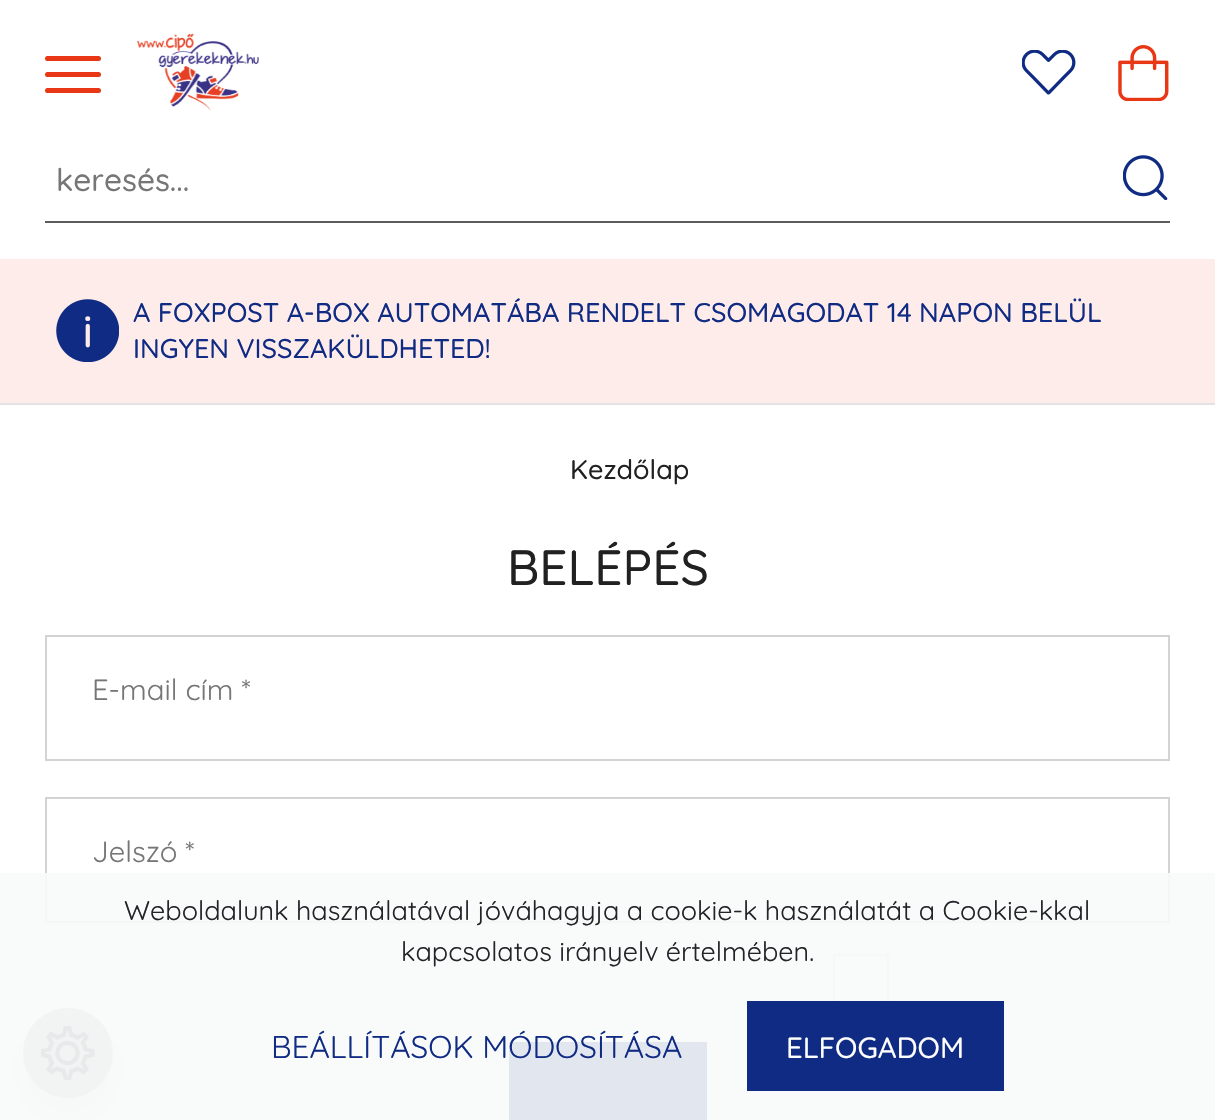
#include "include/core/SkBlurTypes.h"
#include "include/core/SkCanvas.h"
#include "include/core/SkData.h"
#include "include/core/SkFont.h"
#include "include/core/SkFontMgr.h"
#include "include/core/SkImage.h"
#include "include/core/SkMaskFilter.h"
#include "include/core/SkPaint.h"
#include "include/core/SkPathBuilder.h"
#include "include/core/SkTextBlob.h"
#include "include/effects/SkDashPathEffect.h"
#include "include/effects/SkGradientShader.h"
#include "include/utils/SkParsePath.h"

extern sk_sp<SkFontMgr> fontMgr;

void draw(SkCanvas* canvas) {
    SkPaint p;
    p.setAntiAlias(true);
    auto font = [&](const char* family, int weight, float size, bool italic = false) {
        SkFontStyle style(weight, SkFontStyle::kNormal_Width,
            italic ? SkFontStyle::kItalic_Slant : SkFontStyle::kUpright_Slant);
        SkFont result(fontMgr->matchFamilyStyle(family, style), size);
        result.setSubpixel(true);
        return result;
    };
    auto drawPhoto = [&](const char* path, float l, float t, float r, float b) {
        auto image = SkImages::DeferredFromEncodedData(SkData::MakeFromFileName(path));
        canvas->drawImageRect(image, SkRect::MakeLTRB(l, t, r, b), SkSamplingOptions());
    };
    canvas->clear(0xFFFFFFFF);
    p.setColor(0xFFE73714);
    canvas->drawRoundRect(SkRect::MakeLTRB(45, 56, 101, 61), 2.5f, 2.5f, p);
    canvas->drawRoundRect(SkRect::MakeLTRB(45, 72, 101, 77), 2.5f, 2.5f, p);
    canvas->drawRoundRect(SkRect::MakeLTRB(45, 88, 101, 93), 2.5f, 2.5f, p);
    drawPhoto("media/1.png", 137, 33, 259, 110);
    drawPhoto("media/2.png", 1022, 50, 1076, 95);
    drawPhoto("media/3.png", 1118, 45, 1169, 101);
    p.setColor(0xFF5C5C5C);
    canvas->drawRect(SkRect::MakeLTRB(45, 221, 1170, 223), p);
    auto font1 = font("Quicksand", 500, 31.5f);
    p.setColor(0xFF767676);
    canvas->drawString("keresés...", 56, 191, font1, p);
    drawPhoto("media/4.png", 1123, 155, 1168, 200);
    p.setColor(0xFFE3E3E3);
    canvas->drawRect(SkRect::MakeLTRB(0, 403, 1215, 405), p);
    p.setColor(0xFFFDECEA);
    canvas->drawRect(SkRect::MakeLTRB(0, 259, 1215, 403), p);
    drawPhoto("media/5.png", 56, 299, 119, 362);
    auto font2 = font("Quicksand", 500, 27);
    p.setColor(0xFF102B83);
    canvas->drawString("A FOXPOST A-BOX AUTOMATÁBA RENDELT CSOMAGODAT 14 NAPON BELÜL", 133, 322, font2, p);
    canvas->drawString("INGYEN VISSZAKÜLDHETED!", 133, 358, font2, p);
    p.setColor(0xFF212121);
    canvas->drawString("Kezdőlap", 570, 479, font2, p);
    auto font3 = font("Quicksand", 500, 49.5f);
    canvas->drawString("BELÉPÉS", 507, 585, font3, p);
    p.setStyle(SkPaint::kStroke_Style);
    p.setStrokeWidth(2);
    p.setColor(0xFFD3D3D3);
    canvas->drawRect(SkRect::MakeLTRB(46, 636, 1169, 760), p);
    auto font4 = font("Quicksand", 400, 29.25f);
    p.setStyle(SkPaint::kFill_Style);
    p.setColor(0xFF767676);
    canvas->drawString("E-mail cím *", 92, 700, font4, p);
    p.setStyle(SkPaint::kStroke_Style);
    p.setColor(0xFFD3D3D3);
    canvas->drawRect(SkRect::MakeLTRB(46, 798, 1169, 922), p);
    p.setStyle(SkPaint::kFill_Style);
    p.setColor(0xFF767676);
    canvas->drawString("Jelszó *", 92, 862, font4, p);
    p.setStyle(SkPaint::kStroke_Style);
    p.setColor(0xFFDEE2E6);
    canvas->drawRect(SkRect::MakeLTRB(834, 955, 888, 1009), p);
    p.setStyle(SkPaint::kFill_Style);
    p.setColor(0xFF102B83);
    canvas->drawRect(SkRect::MakeLTRB(509, 1042, 707, 1120), p);
    p.setColor(0x26000000);
    p.setMaskFilter(SkMaskFilter::MakeBlur(kNormal_SkBlurStyle, 18));
    canvas->drawRoundRect(SkRect::MakeLTRB(23, 1026, 113, 1116), 45, 45, p);
    p.setMaskFilter(nullptr);
    p.setColor(0xFFB8BCBE);
    canvas->drawCircle(68, 1053, 45, p);
    drawPhoto("media/6.png", 41, 1026, 95, 1080);
    p.setColor(0xE6F8F9FA);
    canvas->drawRect(SkRect::MakeLTRB(0, 873, 1215, 1120), p);
    auto font5 = font("Quicksand", 400, 27);
    p.setColor(0xFF212529);
    canvas->drawString("Weboldalunk használatával jóváhagyja a cookie-k használatát a Cookie-kkal", 124, 920, font5, p);
    canvas->drawString("kapcsolatos irányelv értelmében.", 401, 961, font5, p);
    auto font6 = font("Quicksand", 400, 31.5f);
    p.setColor(0xFF102B83);
    canvas->drawString("BEÁLLÍTÁSOK MÓDOSÍTÁSA", 271, 1058, font6, p);
    canvas->drawRect(SkRect::MakeLTRB(747, 1001, 1004, 1091), p);
    auto font7 = font("Quicksand", 500, 29.25f);
    p.setColor(0xFFFFFFFF);
    canvas->drawString("ELFOGADOM", 786, 1058, font7, p);
}
